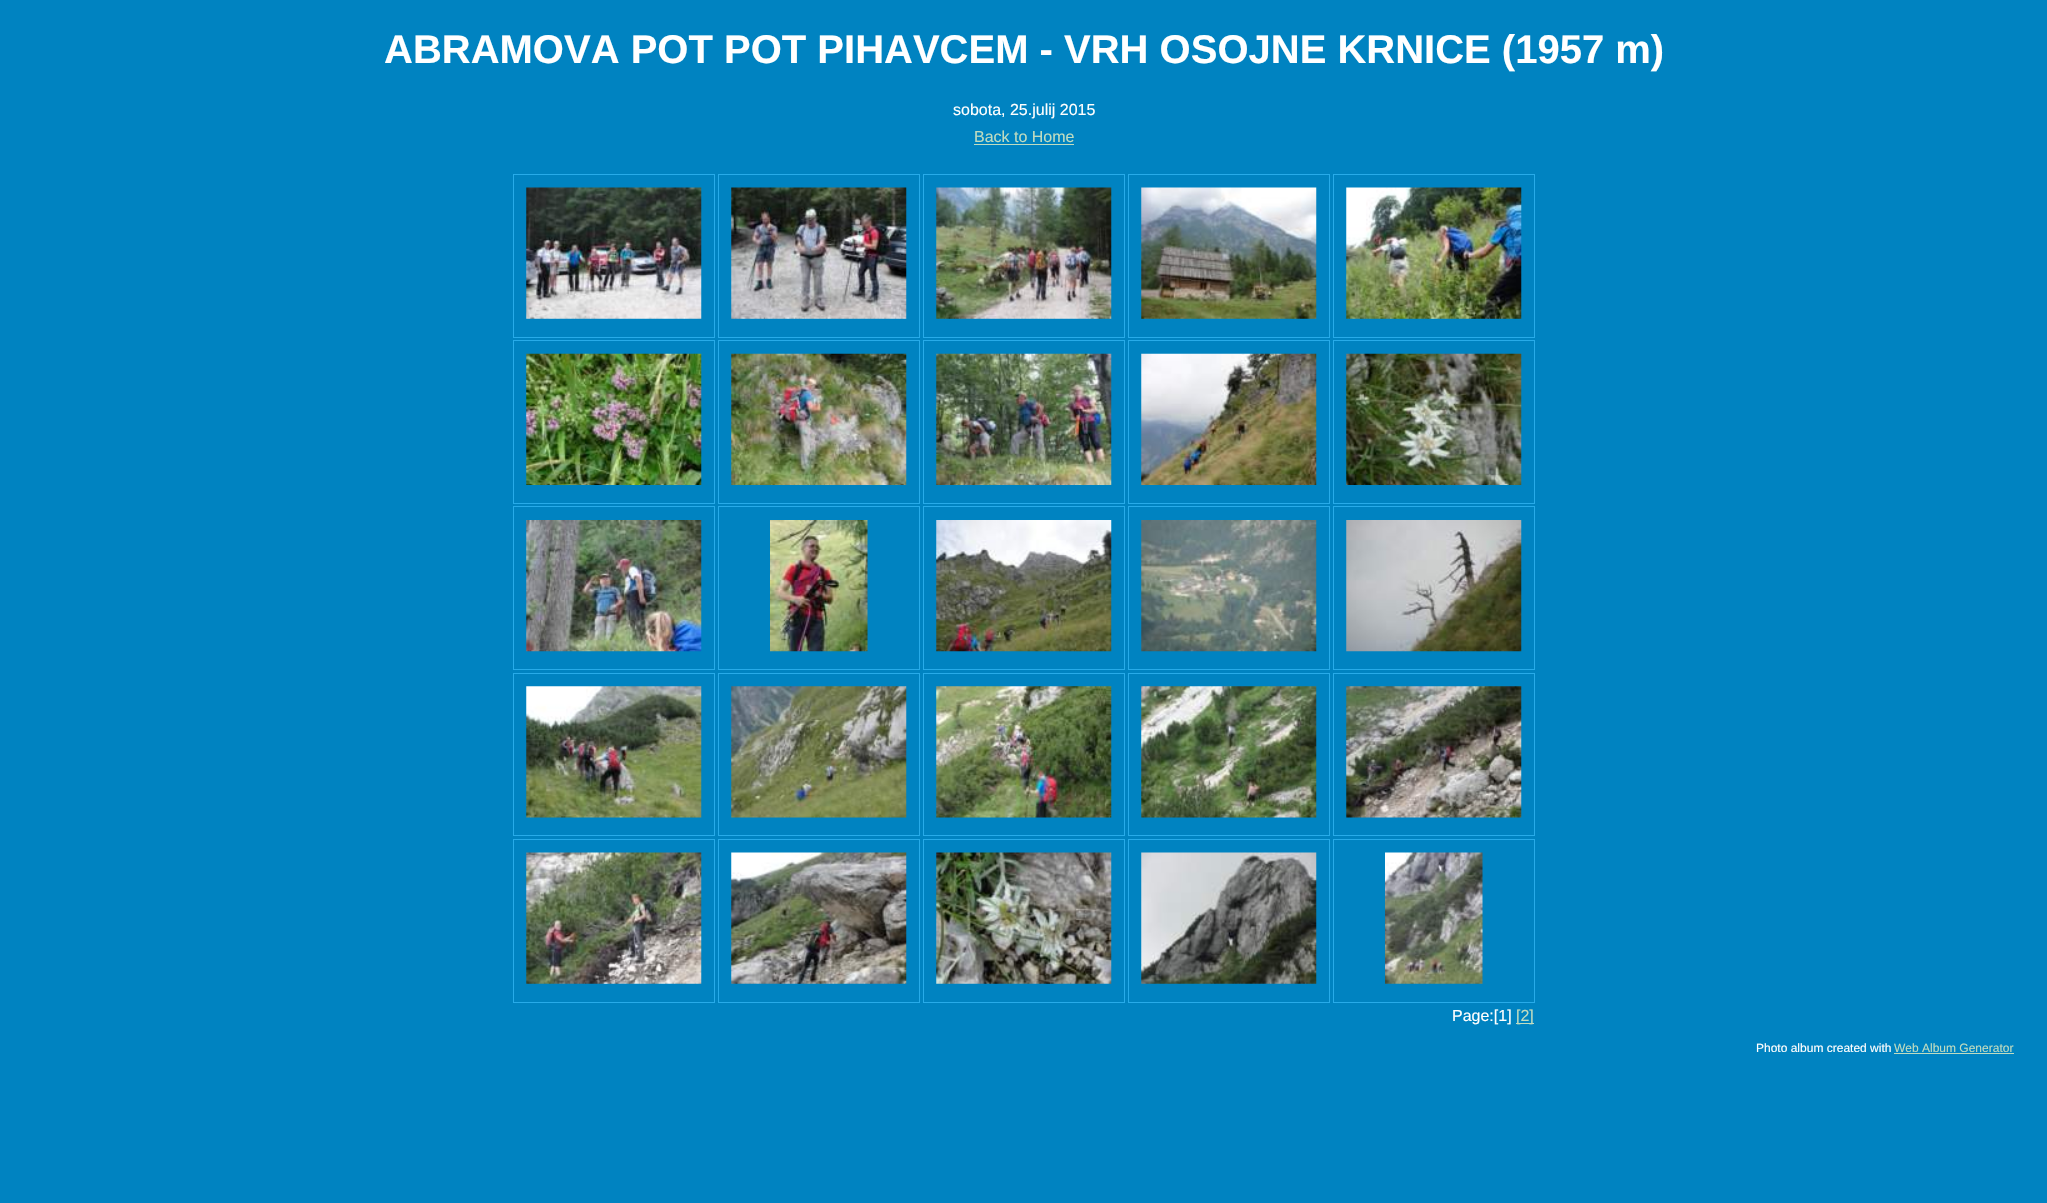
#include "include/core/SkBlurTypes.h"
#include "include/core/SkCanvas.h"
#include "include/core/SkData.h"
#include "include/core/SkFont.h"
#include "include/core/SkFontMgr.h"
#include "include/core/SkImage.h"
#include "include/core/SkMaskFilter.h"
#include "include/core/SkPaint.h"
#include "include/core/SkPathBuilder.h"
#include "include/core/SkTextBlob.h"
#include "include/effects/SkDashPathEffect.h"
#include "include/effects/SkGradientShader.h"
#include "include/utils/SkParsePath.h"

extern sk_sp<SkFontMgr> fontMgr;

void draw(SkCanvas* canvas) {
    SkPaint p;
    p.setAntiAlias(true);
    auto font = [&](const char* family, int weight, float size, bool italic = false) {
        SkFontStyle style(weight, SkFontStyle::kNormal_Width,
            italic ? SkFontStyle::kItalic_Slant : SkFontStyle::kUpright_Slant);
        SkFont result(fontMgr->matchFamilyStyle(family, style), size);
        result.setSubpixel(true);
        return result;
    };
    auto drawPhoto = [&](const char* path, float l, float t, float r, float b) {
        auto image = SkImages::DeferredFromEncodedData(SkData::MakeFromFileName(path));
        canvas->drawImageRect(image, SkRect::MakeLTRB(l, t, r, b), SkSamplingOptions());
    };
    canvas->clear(0xFF0083C1);
    auto font1 = font("Liberation Sans", 700, 40);
    p.setColor(0xFFFFFFFF);
    canvas->drawString("ABRAMOVA POT POT PIHAVCEM - VRH OSOJNE KRNICE (1957 m)", 384, 63, font1, p);
    auto font2 = font("Liberation Sans", 400, 16);
    canvas->drawString("sobota, 25.julij 2015", 953, 115, font2, p);
    p.setColor(0xFFC0DCC0);
    canvas->drawString("Back to Home", 974, 142, font2, p);
    canvas->drawRect(SkRect::MakeLTRB(974, 144, 1074, 145), p);
    p.setStyle(SkPaint::kStroke_Style);
    p.setStrokeWidth(1);
    p.setColor(0xFF28ABE9);
    canvas->drawRect(SkRect::MakeLTRB(513.5f, 174.5f, 714.5f, 337.5f), p);
    drawPhoto("media/1.png", 526, 187, 702, 319);
    canvas->drawRect(SkRect::MakeLTRB(718.5f, 174.5f, 919.5f, 337.5f), p);
    drawPhoto("media/2.png", 731, 187, 907, 319);
    canvas->drawRect(SkRect::MakeLTRB(923.5f, 174.5f, 1124.5f, 337.5f), p);
    drawPhoto("media/3.png", 936, 187, 1112, 319);
    canvas->drawRect(SkRect::MakeLTRB(1128.5f, 174.5f, 1329.5f, 337.5f), p);
    drawPhoto("media/4.png", 1141, 187, 1317, 319);
    canvas->drawRect(SkRect::MakeLTRB(1333.5f, 174.5f, 1534.5f, 337.5f), p);
    drawPhoto("media/5.png", 1346, 187, 1522, 319);
    canvas->drawRect(SkRect::MakeLTRB(513.5f, 340.5f, 714.5f, 503.5f), p);
    drawPhoto("media/6.png", 526, 353, 702, 485);
    canvas->drawRect(SkRect::MakeLTRB(718.5f, 340.5f, 919.5f, 503.5f), p);
    drawPhoto("media/7.png", 731, 353, 907, 485);
    canvas->drawRect(SkRect::MakeLTRB(923.5f, 340.5f, 1124.5f, 503.5f), p);
    drawPhoto("media/8.png", 936, 353, 1112, 485);
    canvas->drawRect(SkRect::MakeLTRB(1128.5f, 340.5f, 1329.5f, 503.5f), p);
    drawPhoto("media/9.png", 1141, 353, 1317, 485);
    canvas->drawRect(SkRect::MakeLTRB(1333.5f, 340.5f, 1534.5f, 503.5f), p);
    drawPhoto("media/10.png", 1346, 353, 1522, 485);
    canvas->drawRect(SkRect::MakeLTRB(513.5f, 506.5f, 714.5f, 669.5f), p);
    drawPhoto("media/11.png", 526, 520, 702, 652);
    canvas->drawRect(SkRect::MakeLTRB(718.5f, 506.5f, 919.5f, 669.5f), p);
    drawPhoto("media/12.png", 770, 520, 868, 652);
    canvas->drawRect(SkRect::MakeLTRB(923.5f, 506.5f, 1124.5f, 669.5f), p);
    drawPhoto("media/13.png", 936, 520, 1112, 652);
    canvas->drawRect(SkRect::MakeLTRB(1128.5f, 506.5f, 1329.5f, 669.5f), p);
    drawPhoto("media/14.png", 1141, 520, 1317, 652);
    canvas->drawRect(SkRect::MakeLTRB(1333.5f, 506.5f, 1534.5f, 669.5f), p);
    drawPhoto("media/15.png", 1346, 520, 1522, 652);
    canvas->drawRect(SkRect::MakeLTRB(513.5f, 673.5f, 714.5f, 835.5f), p);
    drawPhoto("media/16.png", 526, 686, 702, 818);
    canvas->drawRect(SkRect::MakeLTRB(718.5f, 673.5f, 919.5f, 835.5f), p);
    drawPhoto("media/17.png", 731, 686, 907, 818);
    canvas->drawRect(SkRect::MakeLTRB(923.5f, 673.5f, 1124.5f, 835.5f), p);
    drawPhoto("media/18.png", 936, 686, 1112, 818);
    canvas->drawRect(SkRect::MakeLTRB(1128.5f, 673.5f, 1329.5f, 835.5f), p);
    drawPhoto("media/19.png", 1141, 686, 1317, 818);
    canvas->drawRect(SkRect::MakeLTRB(1333.5f, 673.5f, 1534.5f, 835.5f), p);
    drawPhoto("media/20.png", 1346, 686, 1522, 818);
    canvas->drawRect(SkRect::MakeLTRB(513.5f, 839.5f, 714.5f, 1002.5f), p);
    drawPhoto("media/21.png", 526, 852, 702, 984);
    canvas->drawRect(SkRect::MakeLTRB(718.5f, 839.5f, 919.5f, 1002.5f), p);
    drawPhoto("media/22.png", 731, 852, 907, 984);
    canvas->drawRect(SkRect::MakeLTRB(923.5f, 839.5f, 1124.5f, 1002.5f), p);
    drawPhoto("media/23.png", 936, 852, 1112, 984);
    canvas->drawRect(SkRect::MakeLTRB(1128.5f, 839.5f, 1329.5f, 1002.5f), p);
    drawPhoto("media/24.png", 1141, 852, 1317, 984);
    canvas->drawRect(SkRect::MakeLTRB(1333.5f, 839.5f, 1534.5f, 1002.5f), p);
    drawPhoto("media/25.png", 1385, 852, 1483, 984);
    p.setStyle(SkPaint::kFill_Style);
    p.setColor(0xFFFFFFFF);
    canvas->drawString("Page:[1]", 1452, 1021, font2, p);
    p.setColor(0xFFC0DCC0);
    canvas->drawRect(SkRect::MakeLTRB(1516, 1023, 1534, 1024), p);
    canvas->drawString("[2]", 1516, 1021, font2, p);
    auto font3 = font("Liberation Sans", 400, 12);
    p.setColor(0xFFFFFFFF);
    canvas->drawString("Photo album created with", 1756, 1052, font3, p);
    p.setColor(0xFFC0DCC0);
    canvas->drawString("Web Album Generator", 1894, 1052, font3, p);
    canvas->drawRect(SkRect::MakeLTRB(1894, 1053, 2014, 1054), p);
}
